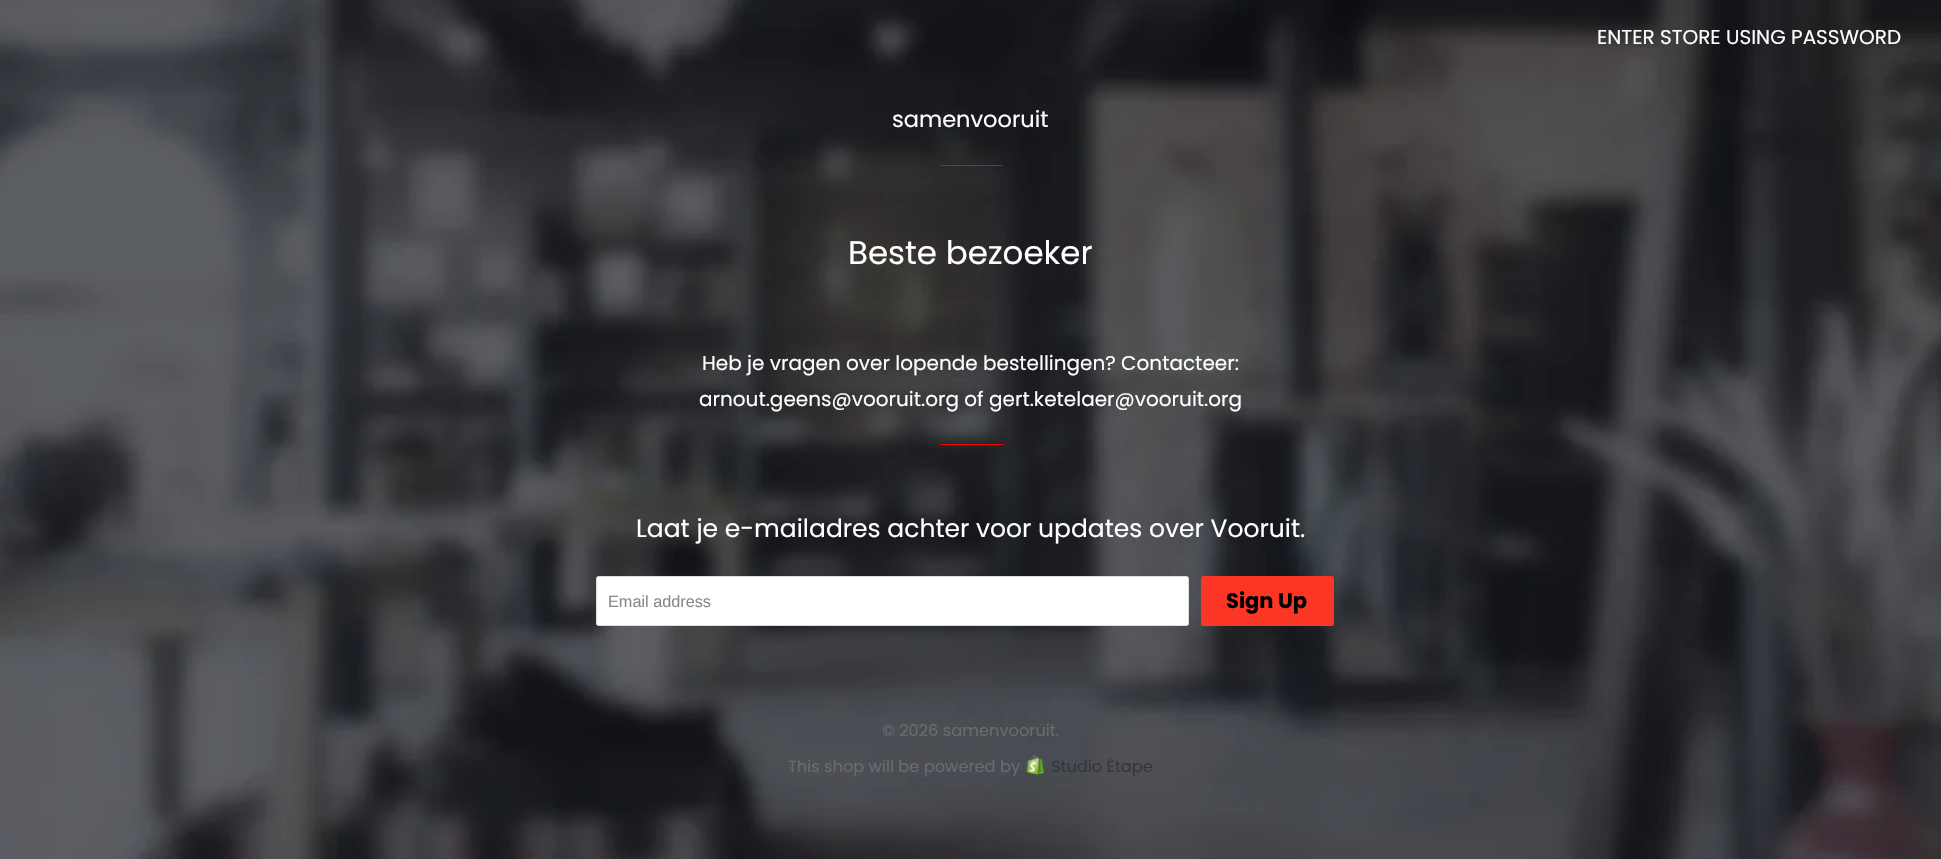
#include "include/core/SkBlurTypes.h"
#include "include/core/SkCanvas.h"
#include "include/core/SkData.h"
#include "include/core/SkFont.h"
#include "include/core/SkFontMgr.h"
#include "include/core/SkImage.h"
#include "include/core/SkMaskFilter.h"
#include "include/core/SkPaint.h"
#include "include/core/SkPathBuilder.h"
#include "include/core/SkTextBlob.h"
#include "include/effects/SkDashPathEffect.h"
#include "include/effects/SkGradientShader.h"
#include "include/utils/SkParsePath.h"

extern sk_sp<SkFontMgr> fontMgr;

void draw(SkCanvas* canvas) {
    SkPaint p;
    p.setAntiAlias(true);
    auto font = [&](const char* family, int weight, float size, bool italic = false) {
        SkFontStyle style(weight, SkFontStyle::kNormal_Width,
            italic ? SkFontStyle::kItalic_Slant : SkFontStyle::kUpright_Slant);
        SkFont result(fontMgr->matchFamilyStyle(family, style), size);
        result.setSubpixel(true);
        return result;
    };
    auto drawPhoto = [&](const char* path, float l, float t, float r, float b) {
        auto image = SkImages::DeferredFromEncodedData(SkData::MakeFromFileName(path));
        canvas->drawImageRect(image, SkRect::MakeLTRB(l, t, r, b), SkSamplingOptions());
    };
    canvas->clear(0xFFFFFFFF);
    drawPhoto("media/1.png", 0, 0, 1941, 859);
    auto font1 = font("Poppins", 400, 20);
    p.setColor(0xFFFFFFFF);
    canvas->drawString("ENTER STORE USING PASSWORD", 1597, 44, font1, p);
    auto font2 = font("Poppins", 400, 22.5f);
    canvas->drawString("samenvooruit", 892, 127, font2, p);
    p.setColor(0xFFF40202);
    canvas->drawRect(SkRect::MakeLTRB(940, 165, 1003, 166), p);
    auto font3 = font("Poppins", 400, 32.5f);
    p.setColor(0xFFFFFFFF);
    canvas->drawString("Beste bezoeker", 848, 264, font3, p);
    canvas->drawString("Heb je vragen over lopende bestellingen? Contacteer:", 702, 370, font1, p);
    canvas->drawString("arnout.geens@vooruit.org of gert.ketelaer@vooruit.org", 699, 406, font1, p);
    p.setColor(0xFFF40202);
    canvas->drawRect(SkRect::MakeLTRB(940, 444, 1003, 445), p);
    auto font4 = font("Poppins", 400, 25);
    p.setColor(0xFFFFFFFF);
    canvas->drawString("Laat je e-mailadres achter voor updates over Vooruit.", 636, 537, font4, p);
    canvas->drawRoundRect(SkRect::MakeLTRB(596.5f, 576.5f, 1188.5f, 625.5f), 2, 2, p);
    p.setStyle(SkPaint::kStroke_Style);
    p.setStrokeWidth(1);
    p.setColor(0xFFDFDFDF);
    canvas->drawRoundRect(SkRect::MakeLTRB(596.5f, 576.5f, 1188.5f, 625.5f), 2, 2, p);
    auto font5 = font("Liberation Sans", 400, 16.25f);
    p.setStyle(SkPaint::kFill_Style);
    p.setColor(0xFF888888);
    canvas->drawString("Email address", 608, 607, font5, p);
    p.setColor(0xFFFB3625);
    canvas->drawRoundRect(SkRect::MakeLTRB(1201, 576, 1334, 626), 2.5f, 2.5f, p);
    auto font6 = font("Poppins", 700, 21);
    p.setColor(0xFF000000);
    canvas->drawString("Sign Up", 1226, 608, font6, p);
    auto font7 = font("Poppins", 400, 16.25f);
    p.setColor(0xFF6B6B6B);
    canvas->drawString("© 2026 samenvooruit.", 882, 736, font7, p);
    canvas->drawString("This shop will be powered by", 788, 772, font7, p);
    drawPhoto("media/2.png", 1026, 755, 1044, 776);
    p.setColor(0xFF363636);
    canvas->drawString("Studio Étape", 1051, 772, font7, p);
}
